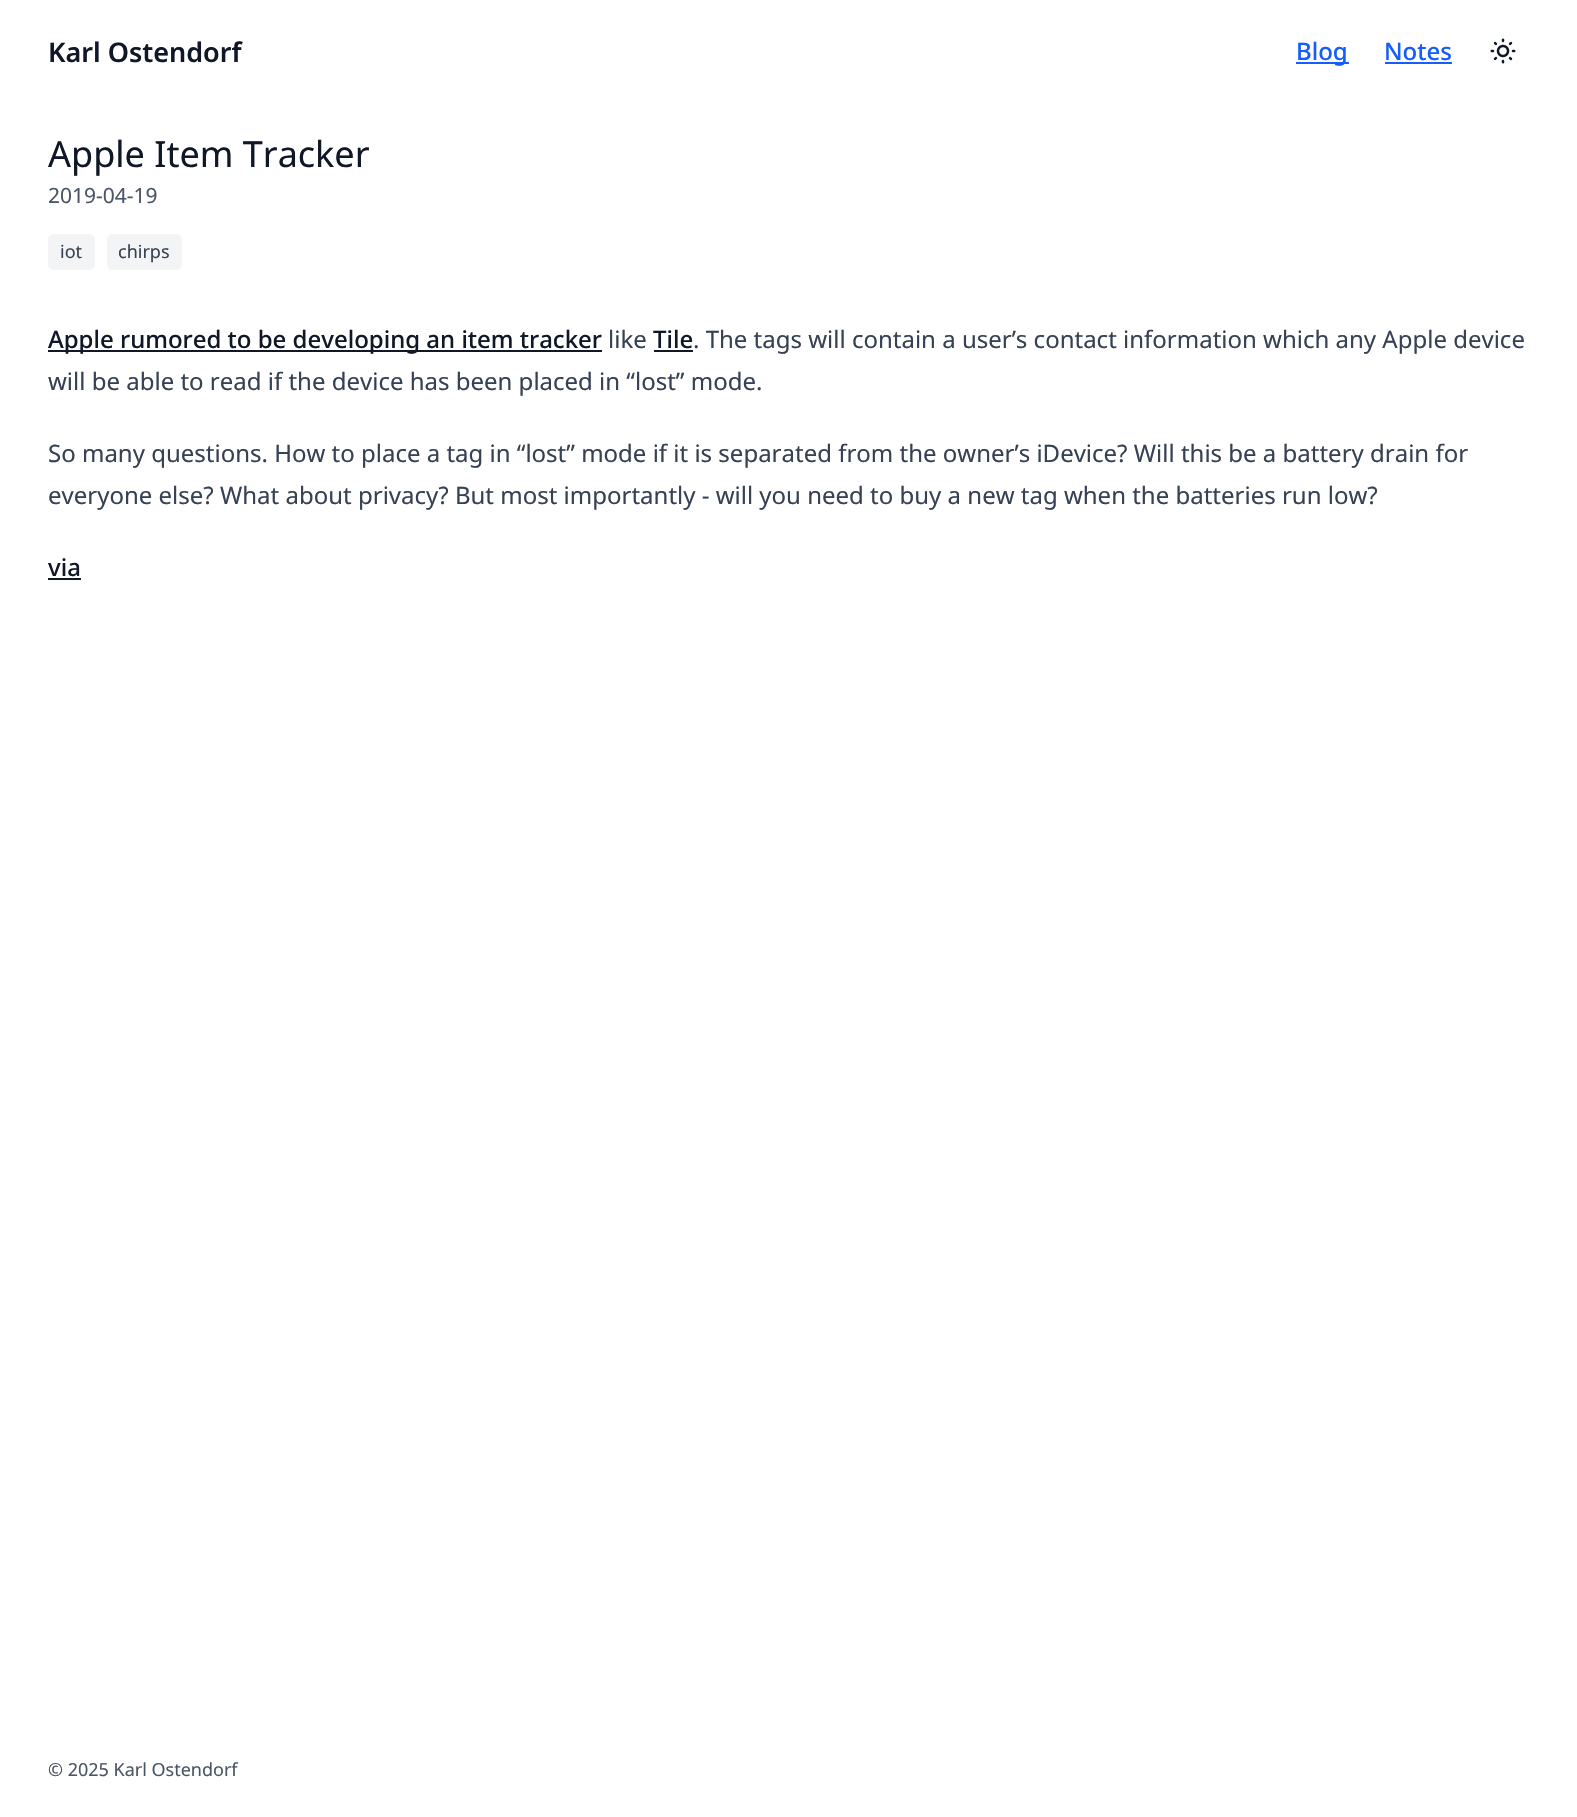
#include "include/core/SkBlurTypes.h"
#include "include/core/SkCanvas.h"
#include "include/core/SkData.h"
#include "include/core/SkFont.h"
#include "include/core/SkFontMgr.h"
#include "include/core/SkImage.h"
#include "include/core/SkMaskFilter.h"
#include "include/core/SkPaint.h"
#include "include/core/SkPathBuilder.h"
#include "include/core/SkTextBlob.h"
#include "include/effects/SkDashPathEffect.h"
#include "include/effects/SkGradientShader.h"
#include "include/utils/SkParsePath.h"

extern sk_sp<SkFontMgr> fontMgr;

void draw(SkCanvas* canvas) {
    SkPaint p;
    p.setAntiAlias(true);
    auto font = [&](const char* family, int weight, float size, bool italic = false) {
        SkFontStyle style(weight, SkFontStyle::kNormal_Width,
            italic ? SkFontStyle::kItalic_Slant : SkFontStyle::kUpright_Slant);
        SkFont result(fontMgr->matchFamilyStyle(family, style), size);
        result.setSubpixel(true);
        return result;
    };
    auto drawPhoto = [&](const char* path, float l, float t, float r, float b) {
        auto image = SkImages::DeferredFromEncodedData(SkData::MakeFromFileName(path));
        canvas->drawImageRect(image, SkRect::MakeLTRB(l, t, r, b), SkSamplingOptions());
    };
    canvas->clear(0xFFFFFFFF);
    auto font1 = font("Noto Sans", 600, 27);
    p.setColor(0xFF101828);
    canvas->drawString("Karl Ostendorf", 48, 62, font1, p);
    p.setColor(0xFF155DFC);
    canvas->drawRect(SkRect::MakeLTRB(1296, 62, 1349, 64), p);
    auto font2 = font("Noto Sans", 500, 24);
    canvas->drawString("Blog", 1296, 60, font2, p);
    canvas->drawString("Notes", 1384, 60, font2, p);
    canvas->drawRect(SkRect::MakeLTRB(1385, 62, 1452, 64), p);
    drawPhoto("media/1.png", 1490, 38, 1516, 64);
    auto font3 = font("Noto Sans", 400, 36);
    p.setColor(0xFF101828);
    canvas->drawString("Apple Item Tracker", 48, 167, font3, p);
    auto font4 = font("Noto Sans", 400, 21);
    p.setColor(0xFF4A5565);
    canvas->drawString("2019-04-19", 48, 203, font4, p);
    p.setColor(0xFFF3F4F6);
    canvas->drawRoundRect(SkRect::MakeLTRB(48, 234, 95, 270), 6, 6, p);
    auto font5 = font("Noto Sans", 400, 18);
    p.setColor(0xFF364153);
    canvas->drawString("iot", 60, 258, font5, p);
    p.setColor(0xFFF3F4F6);
    canvas->drawRoundRect(SkRect::MakeLTRB(107, 234, 182, 270), 6, 6, p);
    p.setColor(0xFF364153);
    canvas->drawString("chirps", 118, 258, font5, p);
    p.setColor(0xFF101828);
    canvas->drawRect(SkRect::MakeLTRB(48, 350, 602, 352), p);
    canvas->drawString("Apple rumored to be developing an item tracker", 48, 348, font2, p);
    auto font6 = font("Noto Sans", 400, 24);
    p.setColor(0xFF364153);
    canvas->drawString("like", 608, 348, font6, p);
    p.setColor(0xFF101828);
    canvas->drawString("Tile", 653, 348, font2, p);
    canvas->drawRect(SkRect::MakeLTRB(654, 350, 693, 352), p);
    p.setColor(0xFF364153);
    {
        const struct { const char* s; float x, y; } items[] = {
            {". The tags will contain a user’s contact information which any Apple device", 693, 348},
            {"will be able to read if the device has been placed in “lost” mode.", 48, 390},
            {"So many questions. How to place a tag in “lost” mode if it is separated from the owner’s iDevice? Will this be a battery drain for", 48, 462},
            {"everyone else? What about privacy? But most importantly - will you need to buy a new tag when the batteries run low?", 48, 504},
        };
        for (auto [s, x, y] : items) {
            canvas->drawString(s, x, y, font6, p);
        }
    }
    p.setColor(0xFF101828);
    canvas->drawString("via", 48, 576, font2, p);
    canvas->drawRect(SkRect::MakeLTRB(48, 578, 81, 580), p);
    p.setColor(0xFF4A5565);
    canvas->drawString("© 2025 Karl Ostendorf", 48, 1776, font5, p);
}
